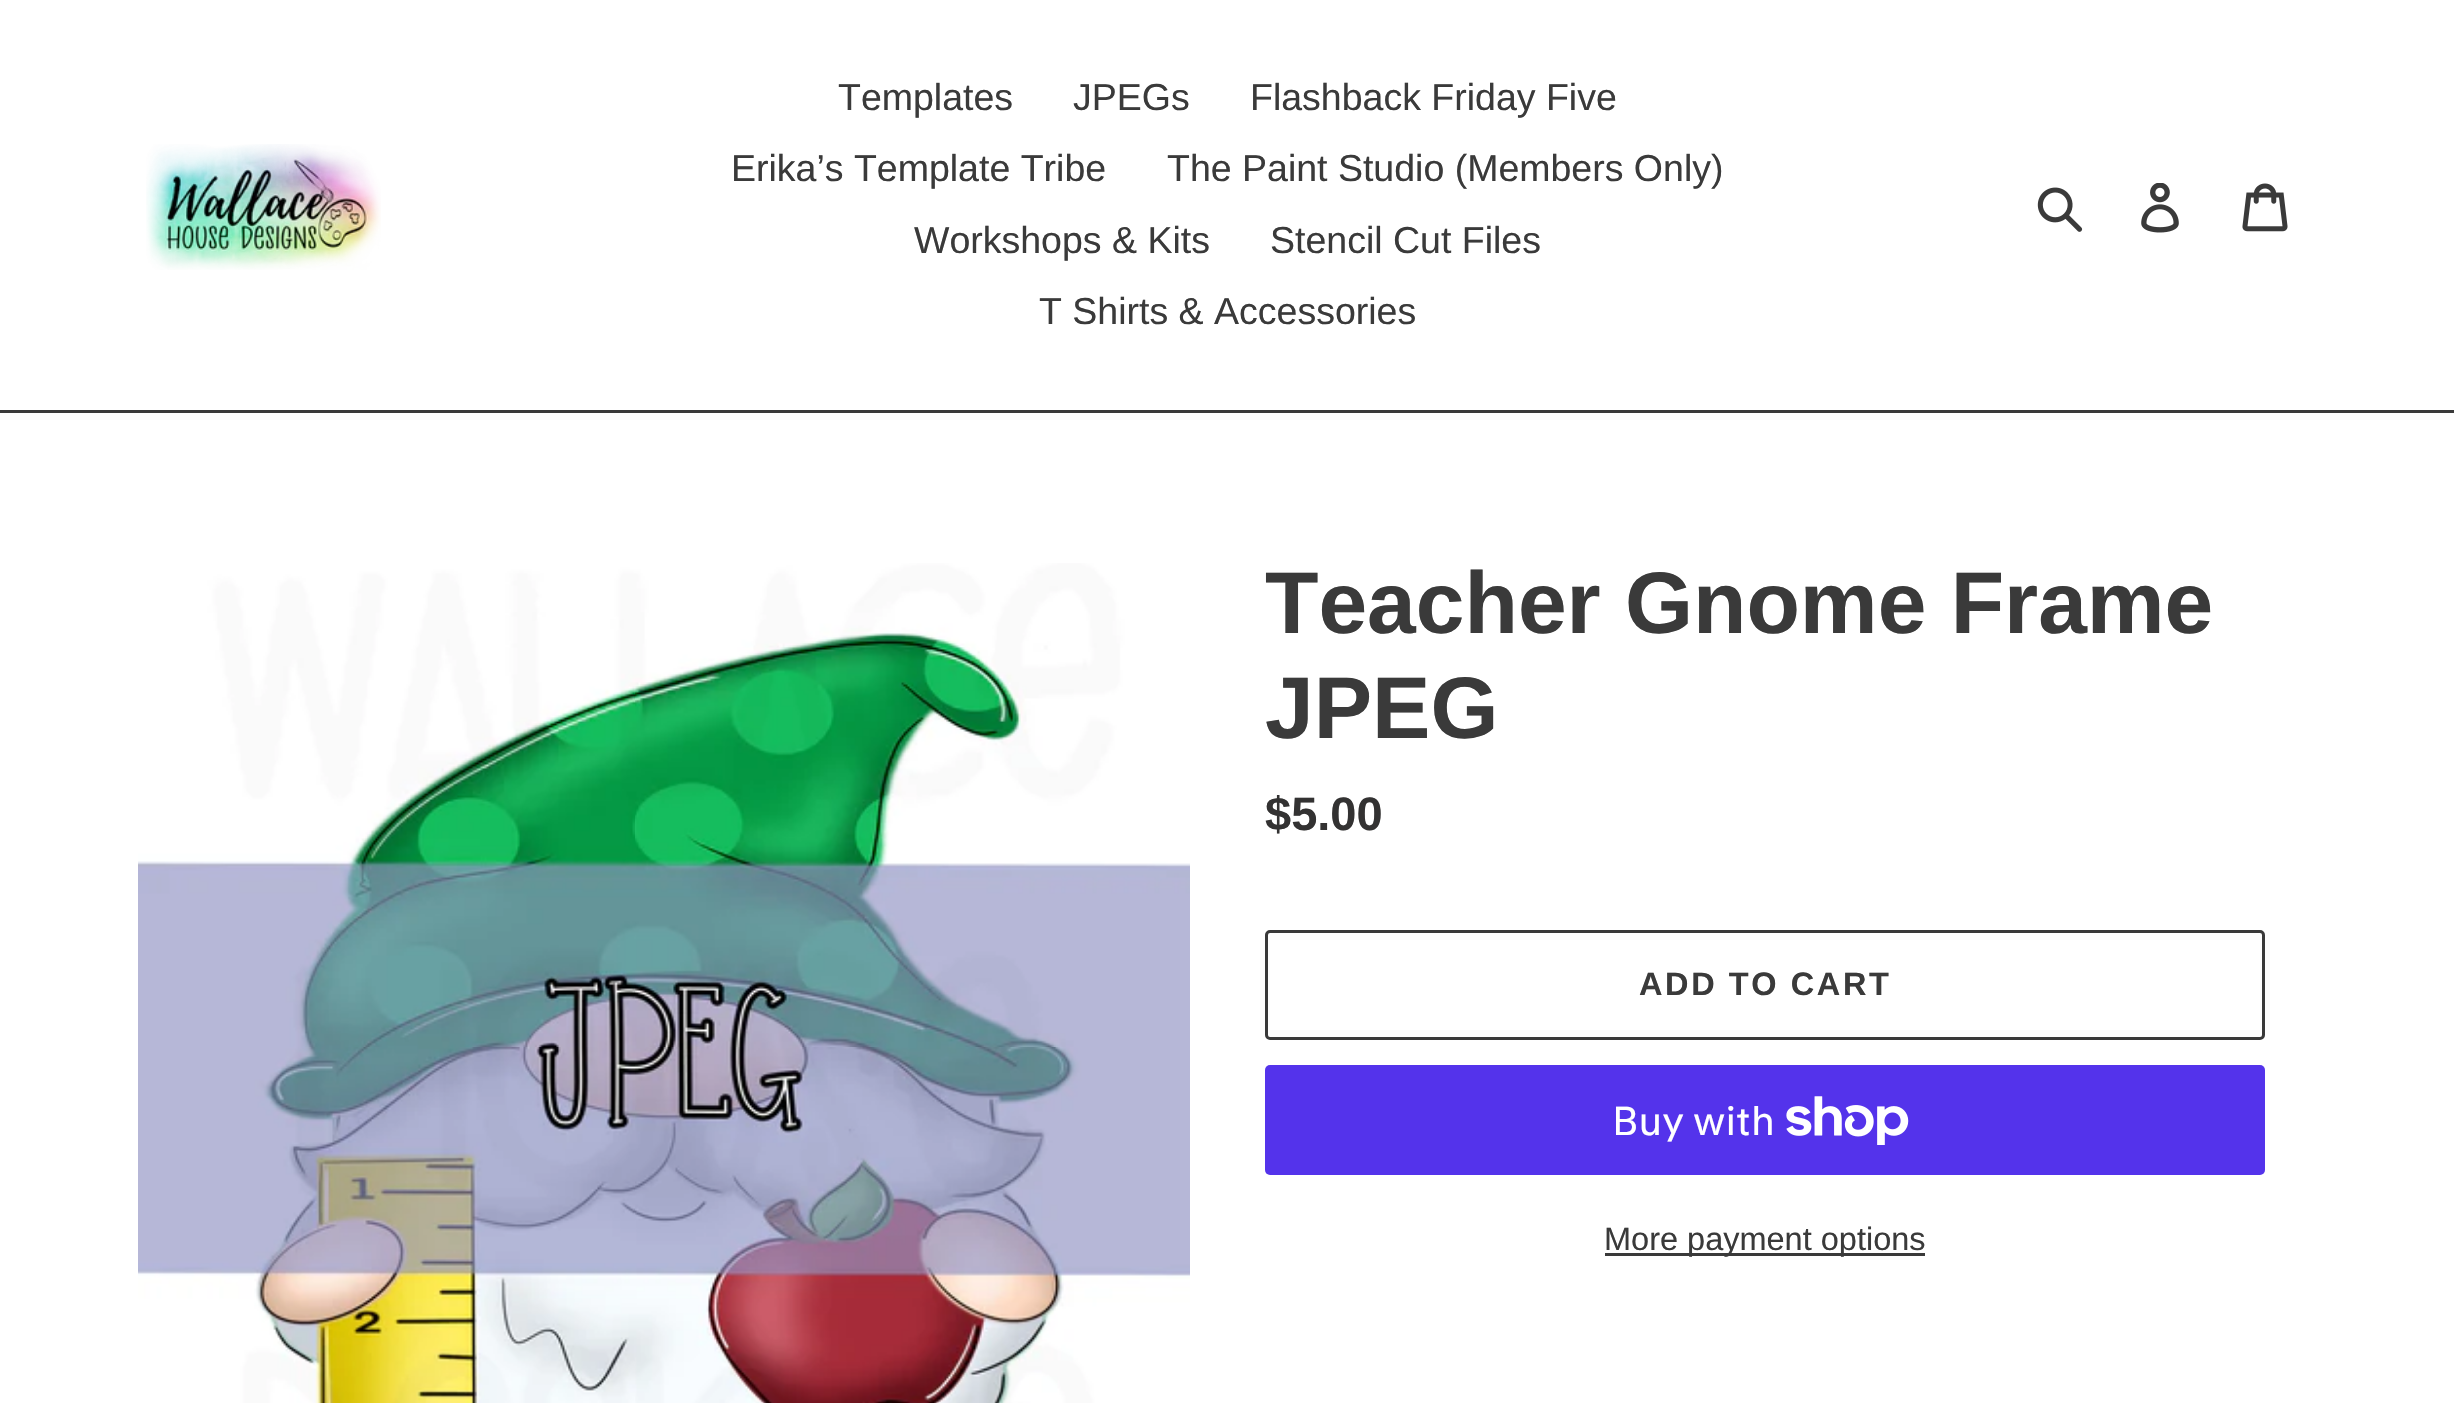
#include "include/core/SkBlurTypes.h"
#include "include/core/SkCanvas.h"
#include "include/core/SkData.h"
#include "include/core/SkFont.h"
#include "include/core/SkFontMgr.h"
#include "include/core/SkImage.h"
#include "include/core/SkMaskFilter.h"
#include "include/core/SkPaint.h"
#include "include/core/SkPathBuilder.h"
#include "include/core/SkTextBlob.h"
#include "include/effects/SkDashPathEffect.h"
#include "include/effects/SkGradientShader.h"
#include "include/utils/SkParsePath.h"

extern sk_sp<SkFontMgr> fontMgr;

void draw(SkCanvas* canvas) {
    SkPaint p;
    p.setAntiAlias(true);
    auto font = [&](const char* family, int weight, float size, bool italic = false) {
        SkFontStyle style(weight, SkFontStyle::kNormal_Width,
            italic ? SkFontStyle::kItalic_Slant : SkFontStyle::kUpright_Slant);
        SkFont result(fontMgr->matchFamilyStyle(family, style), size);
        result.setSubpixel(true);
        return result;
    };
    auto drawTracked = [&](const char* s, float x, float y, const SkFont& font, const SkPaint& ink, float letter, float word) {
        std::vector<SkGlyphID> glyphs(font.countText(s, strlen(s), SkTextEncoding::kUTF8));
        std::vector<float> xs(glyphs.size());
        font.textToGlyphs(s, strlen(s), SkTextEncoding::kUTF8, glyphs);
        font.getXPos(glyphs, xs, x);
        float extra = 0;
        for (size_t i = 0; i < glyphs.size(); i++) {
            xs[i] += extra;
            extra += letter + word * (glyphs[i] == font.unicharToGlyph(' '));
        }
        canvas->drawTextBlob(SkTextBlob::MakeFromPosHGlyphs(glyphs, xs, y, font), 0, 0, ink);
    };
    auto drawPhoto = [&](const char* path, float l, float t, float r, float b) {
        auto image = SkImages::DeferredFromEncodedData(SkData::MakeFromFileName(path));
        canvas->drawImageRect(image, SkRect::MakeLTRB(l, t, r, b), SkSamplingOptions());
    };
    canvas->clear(0xFFFFFFFF);
    p.setColor(0xFF3A3A3A);
    canvas->drawRect(SkRect::MakeLTRB(0, 410, 2454, 413), p);
    drawPhoto("media/1.png", 146, 144, 381, 270);
    auto font1 = font("Liberation Sans", 400, 37.5f);
    {
        const struct { const char* s; float x, y; } items[] = {
            {"Templates", 838, 110},
            {"JPEGs", 1073, 110},
            {"Flashback Friday Five", 1250, 110},
            {"Erika’s Template Tribe", 731, 181},
            {"The Paint Studio (Members Only)", 1167, 181},
            {"Workshops & Kits", 914, 253},
            {"Stencil Cut Files", 1270, 253},
            {"T Shirts & Accessories", 1039, 324},
        };
        for (auto [s, x, y] : items) {
            canvas->drawString(s, x, y, font1, p);
        }
    }
    drawPhoto("media/2.png", 2037, 187, 2083, 232);
    drawPhoto("media/3.png", 2141, 183, 2179, 233);
    drawPhoto("media/4.png", 2242, 183, 2288, 232);
    drawPhoto("media/5.png", 138, 563, 1190, 1403);
    auto font2 = font("Liberation Sans", 700, 87.5f);
    canvas->drawString("Teacher Gnome Frame", 1265, 633, font2, p);
    canvas->drawString("JPEG", 1265, 738, font2, p);
    auto font3 = font("Liberation Sans", 700, 47);
    p.setColor(0xFF333232);
    canvas->drawString("$5.00", 1265, 830, font3, p);
    p.setStyle(SkPaint::kStroke_Style);
    p.setStrokeWidth(3);
    p.setColor(0xFF3A3A3A);
    canvas->drawRoundRect(SkRect::MakeLTRB(1266.5f, 931.5f, 2263.5f, 1038.5f), 3.5f, 3.5f, p);
    auto font4 = font("Liberation Sans", 700, 32.5f);
    p.setStyle(SkPaint::kFill_Style);
    drawTracked("ADD TO CART", 1639, 995, font4, p, 2.6f, 0);
    p.setColor(0xFF5433EB);
    canvas->drawRoundRect(SkRect::MakeLTRB(1265, 1065, 2265, 1175), 5, 5, p);
    auto font5 = font("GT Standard", 400, 40);
    p.setColor(0xFFFFFFFF);
    canvas->drawString("Buy with", 1612, 1135, font5, p);
    drawPhoto("media/6.png", 1786, 1096, 1909, 1145);
    p.setColor(0xFF3A3A3A);
    canvas->drawRect(SkRect::MakeLTRB(1605, 1253, 1925, 1256), p);
    auto font6 = font("Liberation Sans", 400, 32.5f);
    canvas->drawString("More payment options", 1604, 1250, font6, p);
}
